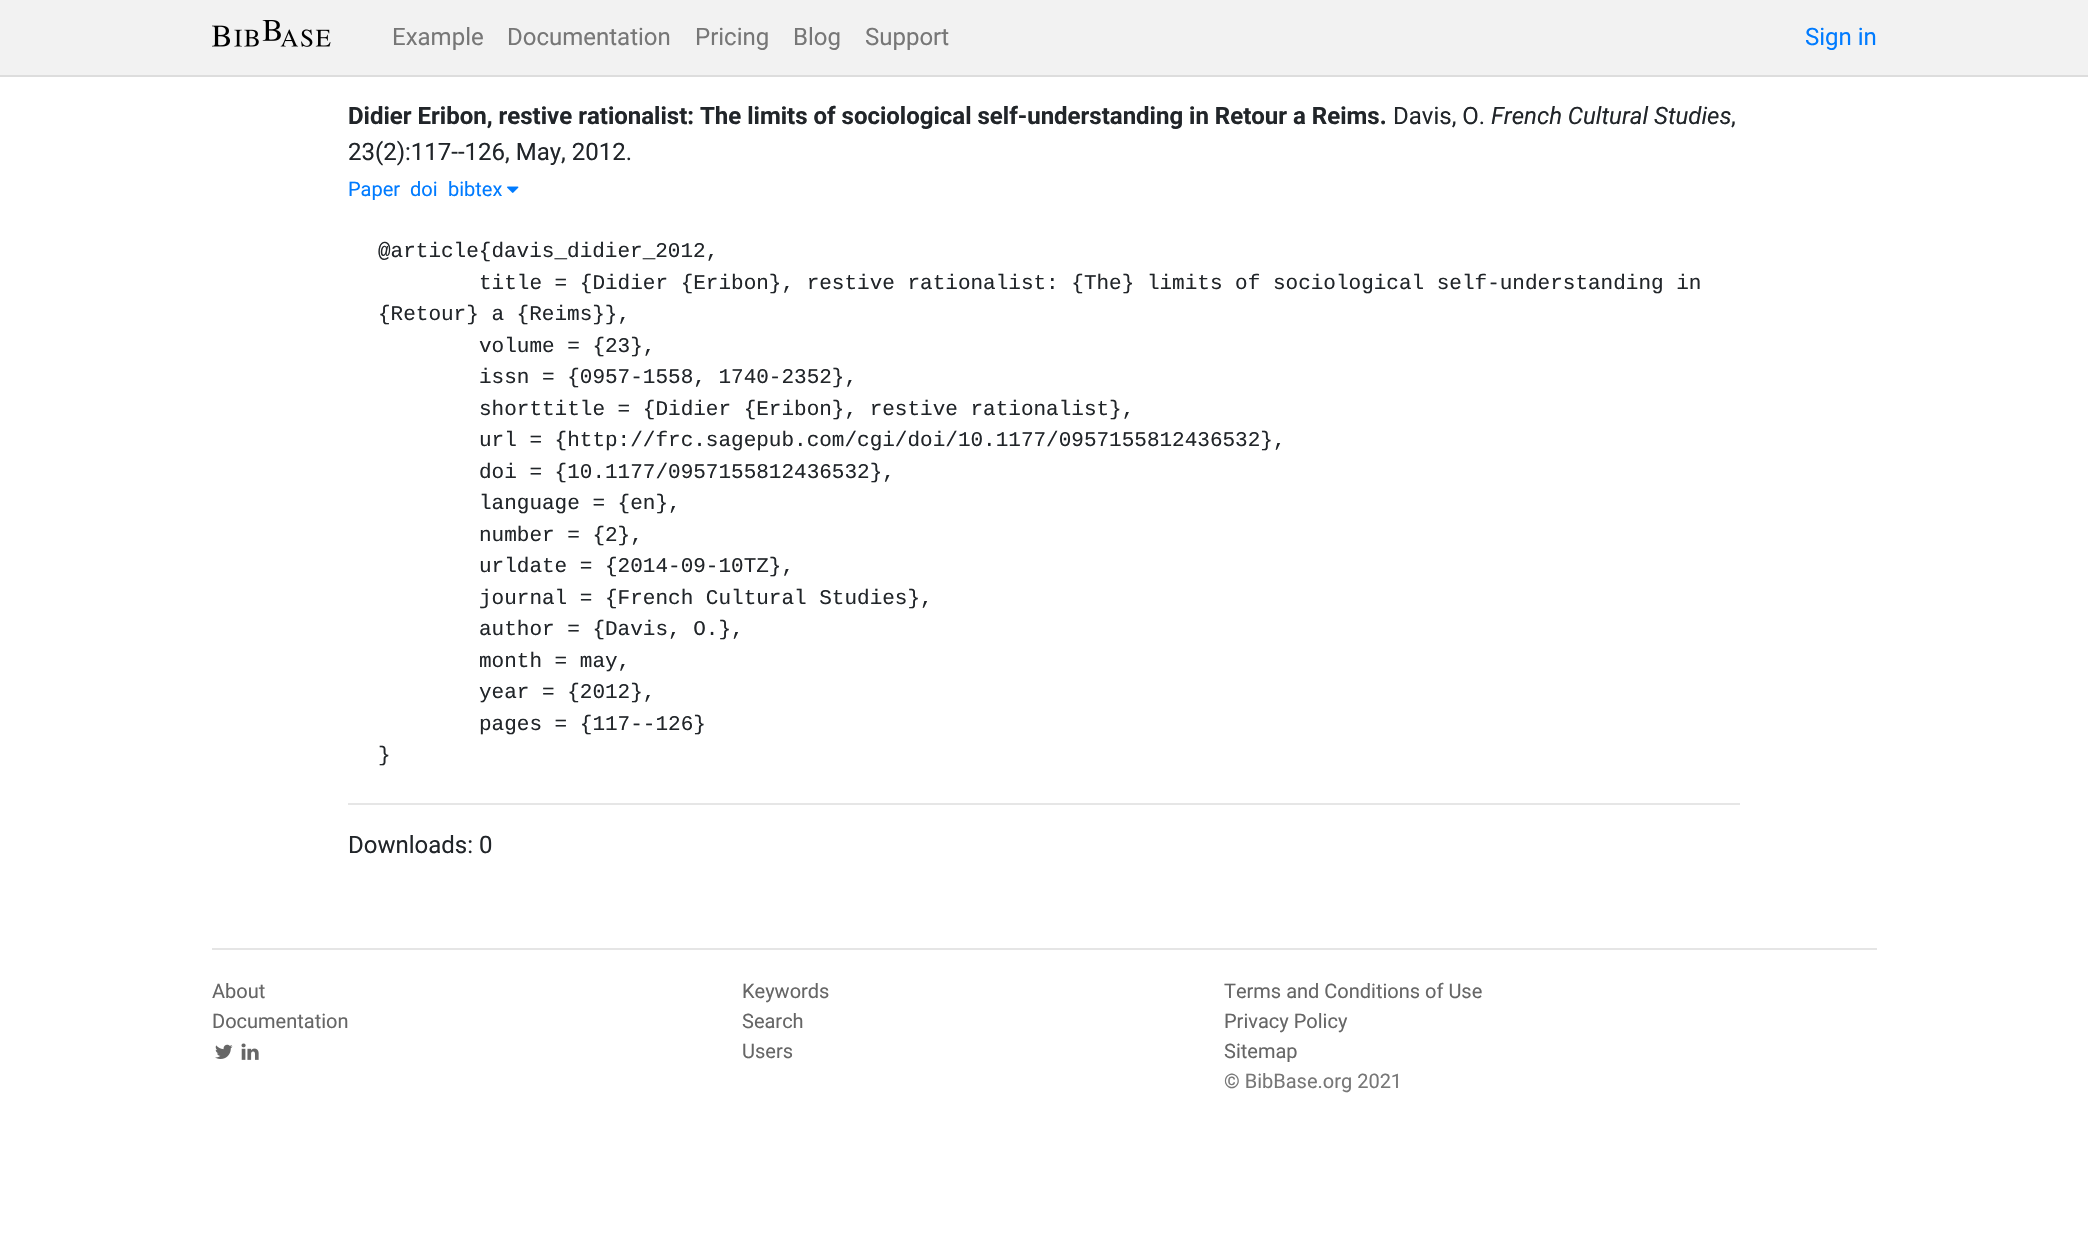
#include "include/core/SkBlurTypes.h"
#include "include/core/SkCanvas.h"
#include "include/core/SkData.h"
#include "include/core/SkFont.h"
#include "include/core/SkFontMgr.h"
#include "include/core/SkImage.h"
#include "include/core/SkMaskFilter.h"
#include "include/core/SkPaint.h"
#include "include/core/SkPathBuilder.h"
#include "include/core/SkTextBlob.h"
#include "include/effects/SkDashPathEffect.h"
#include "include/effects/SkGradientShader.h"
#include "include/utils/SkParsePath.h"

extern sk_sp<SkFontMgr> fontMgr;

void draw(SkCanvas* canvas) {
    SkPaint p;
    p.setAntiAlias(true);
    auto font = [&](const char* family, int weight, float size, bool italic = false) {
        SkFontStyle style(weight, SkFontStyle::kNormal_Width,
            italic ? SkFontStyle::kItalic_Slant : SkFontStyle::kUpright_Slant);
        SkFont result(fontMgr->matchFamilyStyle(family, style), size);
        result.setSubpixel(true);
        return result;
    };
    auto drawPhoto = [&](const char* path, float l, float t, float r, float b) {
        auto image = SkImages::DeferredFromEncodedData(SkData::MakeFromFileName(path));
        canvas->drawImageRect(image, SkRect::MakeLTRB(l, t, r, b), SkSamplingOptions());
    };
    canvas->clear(0xFFFFFFFF);
    p.setColor(0xFFF2F2F2);
    canvas->drawRect(SkRect::MakeLTRB(0, 0, 2088, 75), p);
    p.setColor(0xFFDDDDDD);
    canvas->drawRect(SkRect::MakeLTRB(0, 75, 2088, 77), p);
    drawPhoto("media/1.png", 212, 20, 331, 47);
    auto font1 = font("Roboto", 400, 24);
    p.setColor(0xFF777777);
    {
        const struct { const char* s; float x, y; } items[] = {
            {"Example", 392, 45},
            {"Documentation", 507, 45},
            {"Pricing", 695, 45},
            {"Blog", 793, 45},
            {"Support", 865, 45},
        };
        for (auto [s, x, y] : items) {
            canvas->drawString(s, x, y, font1, p);
        }
    }
    p.setColor(0xFF007BFF);
    canvas->drawString("Sign in", 1805, 45, font1, p);
    auto font2 = font("Roboto", 700, 24);
    p.setColor(0xFF212529);
    canvas->drawString("Didier Eribon, restive rationalist: The limits of sociological self-understanding in Retour a Reims.", 348, 124, font2, p);
    canvas->drawString("Davis, O.", 1393, 124, font1, p);
    auto font3 = font("Roboto", 400, 24, true);
    canvas->drawString("French Cultural Studies", 1491, 124, font3, p);
    canvas->drawString(",", 1731, 124, font1, p);
    canvas->drawString("23(2):117--126, May, 2012.", 348, 160, font1, p);
    auto font4 = font("Roboto", 400, 20);
    p.setColor(0xFF007BFF);
    {
        const struct { const char* s; float x, y; } items[] = {
            {"Paper", 348, 196},
            {"doi", 410, 196},
            {"bibtex", 448, 196},
        };
        for (auto [s, x, y] : items) {
            canvas->drawString(s, x, y, font4, p);
        }
    }
    drawPhoto("media/2.png", 507, 186, 519, 193);
    auto font5 = font("Liberation Mono", 400, 21);
    p.setColor(0xFF212529);
    {
        const struct { const char* s; float x, y; } items[] = {
            {"@article{davis_didier_2012,", 378, 257},
            {"title = {Didier {Eribon}, restive rationalist: {The} limits of sociological self-understanding in", 479, 289},
            {"{Retour} a {Reims}},", 378, 320},
            {"volume = {23},", 479, 352},
            {"issn = {0957-1558, 1740-2352},", 479, 383},
            {"shorttitle = {Didier {Eribon}, restive rationalist},", 479, 415},
            {"url = {http://frc.sagepub.com/cgi/doi/10.1177/0957155812436532},", 479, 446},
            {"doi = {10.1177/0957155812436532},", 479, 478},
            {"language = {en},", 479, 509},
            {"number = {2},", 479, 541},
            {"urldate = {2014-09-10TZ},", 479, 572},
            {"journal = {French Cultural Studies},", 479, 604},
            {"author = {Davis, O.},", 479, 635},
            {"month = may,", 479, 667},
            {"year = {2012},", 479, 698},
            {"pages = {117--126}", 479, 730},
            {"}", 378, 761},
        };
        for (auto [s, x, y] : items) {
            canvas->drawString(s, x, y, font5, p);
        }
    }
    p.setColor(0xFFE6E6E6);
    canvas->drawRect(SkRect::MakeLTRB(348, 803, 1740, 805), p);
    p.setColor(0xFF212529);
    canvas->drawString("Downloads: 0", 348, 853, font1, p);
    p.setColor(0xFFE5E5E5);
    canvas->drawRect(SkRect::MakeLTRB(212, 948, 1877, 950), p);
    p.setColor(0xFF666666);
    canvas->drawString("About", 212, 998, font4, p);
    canvas->drawString("Documentation", 212, 1028, font4, p);
    drawPhoto("media/3.png", 215, 1044, 233, 1059);
    drawPhoto("media/4.png", 241, 1043, 259, 1060);
    {
        const struct { const char* s; float x, y; } items[] = {
            {"Keywords", 742, 998},
            {"Search", 742, 1028},
            {"Users", 742, 1058},
            {"Terms and Conditions of Use", 1224, 998},
            {"Privacy Policy", 1224, 1028},
            {"Sitemap", 1224, 1058},
        };
        for (auto [s, x, y] : items) {
            canvas->drawString(s, x, y, font4, p);
        }
    }
    p.setColor(0xFF777777);
    canvas->drawString("© BibBase.org 2021", 1224, 1088, font4, p);
}
